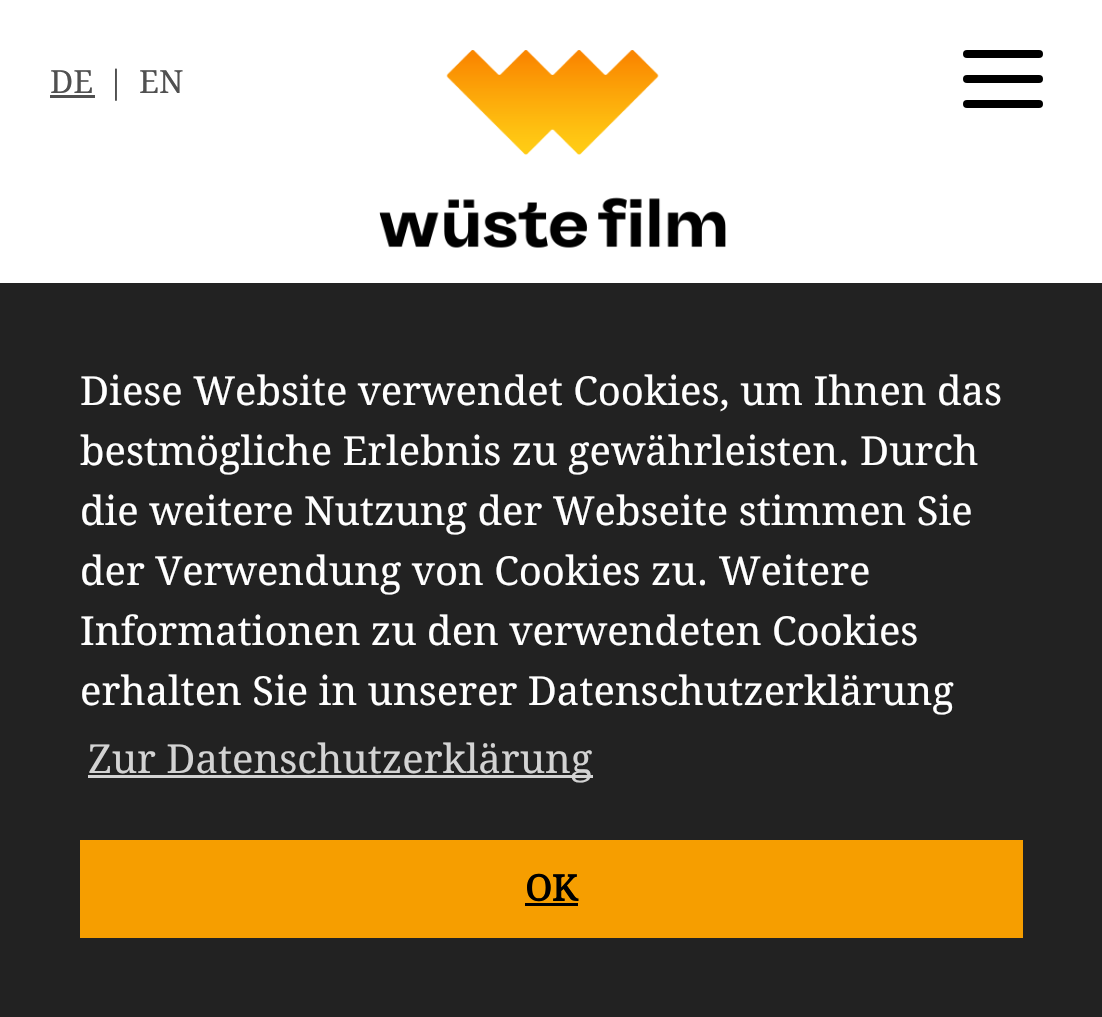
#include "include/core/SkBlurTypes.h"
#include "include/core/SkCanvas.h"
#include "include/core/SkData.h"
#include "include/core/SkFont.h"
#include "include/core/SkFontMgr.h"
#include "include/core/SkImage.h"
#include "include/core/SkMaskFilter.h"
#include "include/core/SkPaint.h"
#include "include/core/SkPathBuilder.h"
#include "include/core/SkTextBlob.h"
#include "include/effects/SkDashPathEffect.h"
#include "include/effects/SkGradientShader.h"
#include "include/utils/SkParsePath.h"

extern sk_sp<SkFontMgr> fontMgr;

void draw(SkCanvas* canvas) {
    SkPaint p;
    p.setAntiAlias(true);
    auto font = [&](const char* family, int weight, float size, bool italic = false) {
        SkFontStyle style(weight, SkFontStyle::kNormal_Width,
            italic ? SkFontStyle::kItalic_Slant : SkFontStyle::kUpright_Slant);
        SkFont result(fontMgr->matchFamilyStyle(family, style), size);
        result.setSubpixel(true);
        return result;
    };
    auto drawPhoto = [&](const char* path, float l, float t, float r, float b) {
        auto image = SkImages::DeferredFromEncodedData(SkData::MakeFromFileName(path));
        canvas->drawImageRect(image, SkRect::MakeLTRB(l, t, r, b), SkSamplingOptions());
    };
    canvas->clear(0xFFFFFFFF);
    auto font1 = font("Droid Serif", 400, 32);
    p.setColor(0xFF505050);
    canvas->drawString("DE", 50, 93, font1, p);
    canvas->drawRect(SkRect::MakeLTRB(50, 95, 95, 98), p);
    canvas->drawString("|", 107, 93, font1, p);
    canvas->drawString("EN", 139, 93, font1, p);
    drawPhoto("media/1.png", 379, 50, 726, 248);
    p.setColor(0xFF000000);
    canvas->drawRoundRect(SkRect::MakeLTRB(963, 75, 1043, 83), 4, 4, p);
    canvas->drawRoundRect(SkRect::MakeLTRB(963, 50, 1043, 58), 4, 4, p);
    canvas->drawRoundRect(SkRect::MakeLTRB(963, 100, 1043, 108), 4, 4, p);
    p.setColor(0xFF222222);
    canvas->drawRect(SkRect::MakeLTRB(0, 283, 1102, 1017), p);
    auto font2 = font("Droid Serif", 400, 40);
    p.setColor(0xFFFFFFFF);
    {
        const struct { const char* s; float x, y; } items[] = {
            {"Diese Website verwendet Cookies, um Ihnen das", 80, 405},
            {"bestmögliche Erlebnis zu gewährleisten. Durch", 80, 465},
            {"die weitere Nutzung der Webseite stimmen Sie", 80, 525},
            {"der Verwendung von Cookies zu. Weitere", 80, 585},
            {"Informationen zu den verwendeten Cookies", 80, 645},
            {"erhalten Sie in unserer Datenschutzerklärung", 80, 705},
        };
        for (auto [s, x, y] : items) {
            canvas->drawString(s, x, y, font2, p);
        }
    }
    p.setColor(0xFFD3D3D3);
    canvas->drawRect(SkRect::MakeLTRB(88, 775, 593, 778), p);
    canvas->drawString("Zur Datenschutzerklärung", 88, 773, font2, p);
    p.setColor(0xFFF69E00);
    canvas->drawRect(SkRect::MakeLTRB(80, 840, 1023, 938), p);
    auto font3 = font("Droid Serif", 700, 36);
    p.setColor(0xFF000000);
    canvas->drawString("OK", 525, 901, font3, p);
    canvas->drawRect(SkRect::MakeLTRB(525, 903, 578, 906), p);
}
